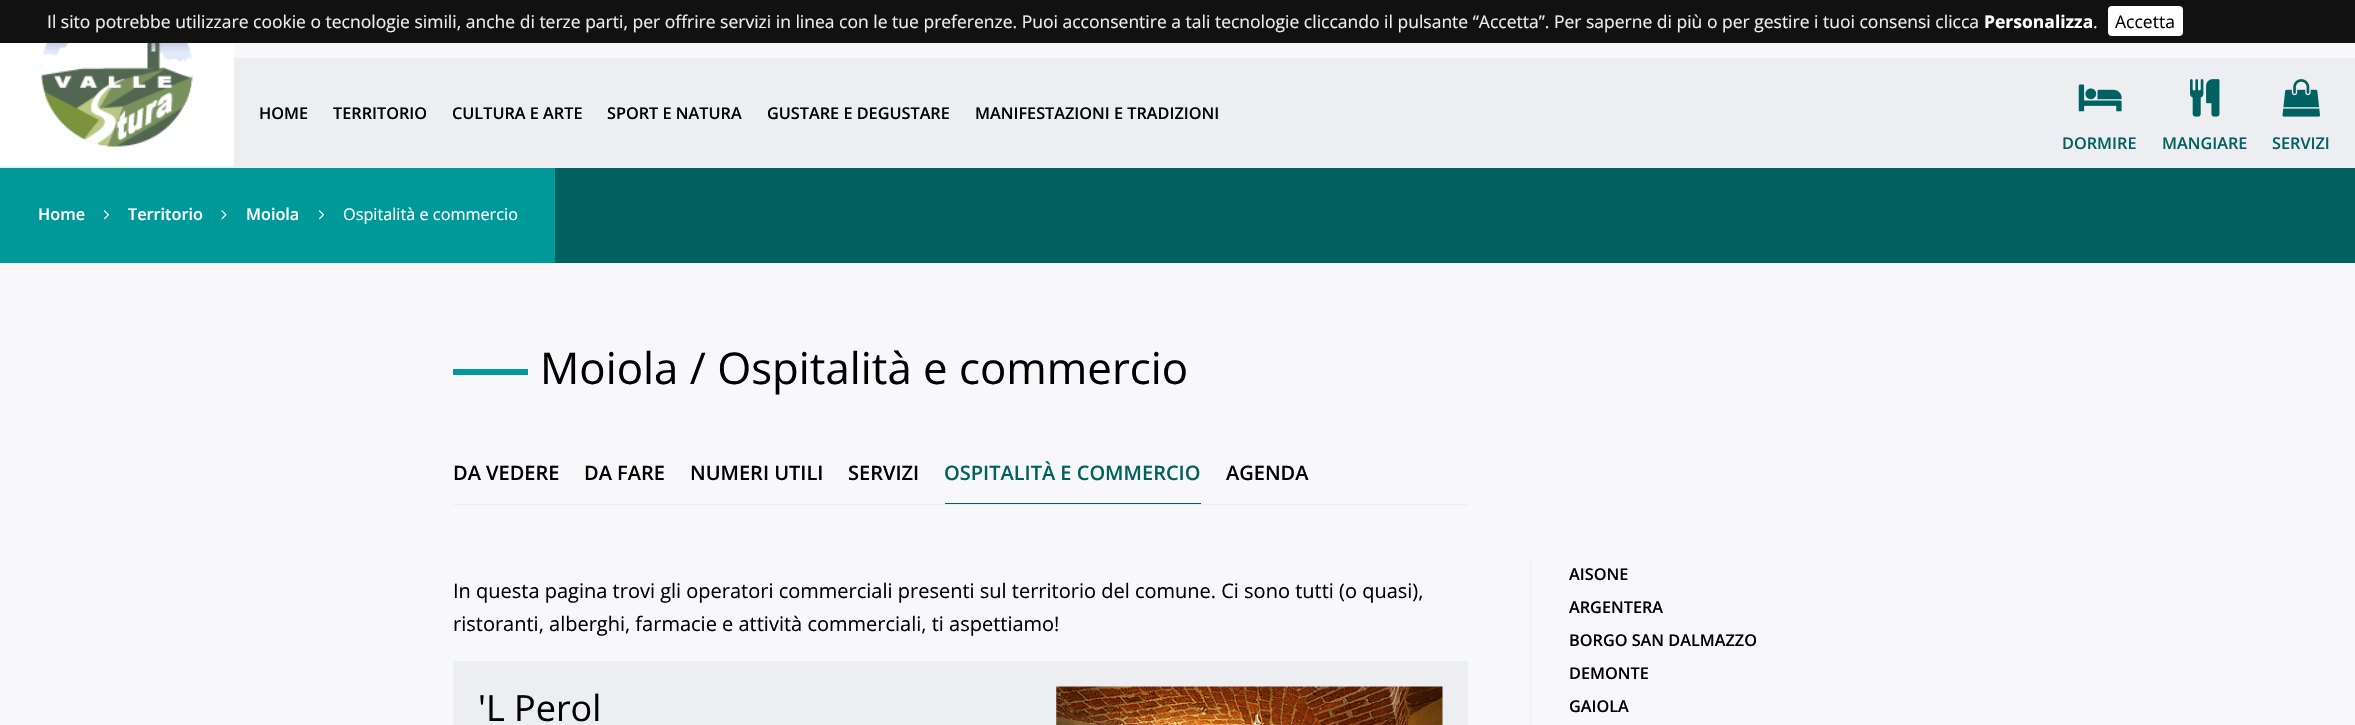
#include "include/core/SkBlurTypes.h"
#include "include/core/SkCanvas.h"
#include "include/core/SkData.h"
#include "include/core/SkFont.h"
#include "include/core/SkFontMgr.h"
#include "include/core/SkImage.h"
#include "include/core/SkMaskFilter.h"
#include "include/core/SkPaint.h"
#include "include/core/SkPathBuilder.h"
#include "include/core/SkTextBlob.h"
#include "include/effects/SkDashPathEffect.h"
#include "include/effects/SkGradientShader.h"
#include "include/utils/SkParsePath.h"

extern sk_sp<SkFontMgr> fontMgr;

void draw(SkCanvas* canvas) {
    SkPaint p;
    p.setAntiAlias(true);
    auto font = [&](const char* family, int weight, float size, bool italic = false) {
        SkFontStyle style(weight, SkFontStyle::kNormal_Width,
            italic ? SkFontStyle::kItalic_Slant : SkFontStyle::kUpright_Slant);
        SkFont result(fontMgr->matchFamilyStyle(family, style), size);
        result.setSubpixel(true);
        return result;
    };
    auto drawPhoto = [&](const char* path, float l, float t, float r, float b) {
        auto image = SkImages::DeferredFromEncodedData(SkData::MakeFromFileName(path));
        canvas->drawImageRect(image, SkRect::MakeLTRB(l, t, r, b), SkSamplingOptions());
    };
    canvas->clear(0xFFF8F8FA);
    p.setColor(0xFF111111);
    canvas->drawRect(SkRect::MakeLTRB(0, 0, 2355, 43), p);
    auto font1 = font("Open Sans", 400, 17.5f);
    p.setColor(0xFFEEEEEE);
    canvas->drawString("Il sito potrebbe utilizzare cookie o tecnologie simili, anche di terze parti, per offrire servizi in linea con le tue preferenze. Puoi acconsentire a tali tecnologie cliccando il pulsante “Accetta”. Per saperne di più o per gestire i tuoi consensi clicca", 47, 28, font1, p);
    auto font2 = font("Open Sans", 700, 17.5f);
    p.setColor(0xFFFFFFFF);
    canvas->drawString("Personalizza", 1984, 28, font2, p);
    p.setColor(0xFFEEEEEE);
    canvas->drawString(".", 2093, 28, font1, p);
    p.setColor(0xFFFFFFFF);
    canvas->drawRoundRect(SkRect::MakeLTRB(2108, 6, 2183, 36), 4, 4, p);
    p.setColor(0xFF000000);
    canvas->drawString("Accetta", 2115, 28, font1, p);
    p.setColor(0xFFEDEEF2);
    canvas->drawRect(SkRect::MakeLTRB(0, 58, 2355, 168), p);
    p.setColor(0xFFFFFFFF);
    canvas->drawRect(SkRect::MakeLTRB(0, 43, 234, 166), p);
    drawPhoto("media/1.png", 41, 43, 193, 147);
    auto font3 = font("Open Sans", 600, 16.25f);
    p.setColor(0xFF000000);
    {
        const struct { const char* s; float x, y; } items[] = {
            {"HOME", 259, 119},
            {"TERRITORIO", 333, 119},
            {"CULTURA E ARTE", 452, 119},
            {"SPORT E NATURA", 607, 119},
            {"GUSTARE E DEGUSTARE", 767, 119},
            {"MANIFESTAZIONI E TRADIZIONI", 975, 119},
        };
        for (auto [s, x, y] : items) {
            canvas->drawString(s, x, y, font3, p);
        }
    }
    drawPhoto("media/2.png", 2078, 84, 2122, 112);
    p.setColor(0xFF006161);
    canvas->drawString("DORMIRE", 2062, 149, font3, p);
    drawPhoto("media/3.png", 2190, 79, 2220, 117);
    canvas->drawString("MANGIARE", 2162, 149, font3, p);
    drawPhoto("media/4.png", 2282, 79, 2320, 117);
    canvas->drawString("SERVIZI", 2272, 149, font3, p);
    canvas->drawRect(SkRect::MakeLTRB(555, 168, 2355, 263), p);
    p.setColor(0xFF009999);
    canvas->drawRect(SkRect::MakeLTRB(0, 168, 555, 263), p);
    p.setColor(0xFFFFFFFF);
    canvas->drawString("Home", 38, 220, font3, p);
    drawPhoto("media/5.png", 103, 210, 110, 220);
    canvas->drawString("Territorio", 128, 220, font3, p);
    drawPhoto("media/6.png", 221, 210, 227, 220);
    canvas->drawString("Moiola", 246, 220, font3, p);
    drawPhoto("media/5.png", 318, 210, 325, 220);
    auto font4 = font("Open Sans", 400, 16.25f);
    canvas->drawString("Ospitalità e commercio", 343, 220, font4, p);
    p.setColor(0xFF009999);
    canvas->drawRect(SkRect::MakeLTRB(453, 369, 528, 375), p);
    auto font5 = font("Open Sans", 400, 43.75f);
    p.setColor(0xFF000000);
    canvas->drawString("Moiola / Ospitalità e commercio", 540, 384, font5, p);
    p.setColor(0xFFEDEEF2);
    canvas->drawRect(SkRect::MakeLTRB(453, 504, 1468, 505), p);
    auto font6 = font("Open Sans", 600, 20);
    p.setColor(0xFF000000);
    {
        const struct { const char* s; float x, y; } items[] = {
            {"DA VEDERE", 453, 480},
            {"DA FARE", 584, 480},
            {"NUMERI UTILI", 690, 480},
            {"SERVIZI", 848, 480},
        };
        for (auto [s, x, y] : items) {
            canvas->drawString(s, x, y, font6, p);
        }
    }
    p.setColor(0xFF006161);
    canvas->drawRect(SkRect::MakeLTRB(945, 503, 1201, 504), p);
    canvas->drawString("OSPITALITÀ E COMMERCIO", 944, 480, font6, p);
    p.setColor(0xFF000000);
    canvas->drawString("AGENDA", 1226, 480, font6, p);
    auto font7 = font("Open Sans", 400, 20);
    canvas->drawString("In questa pagina trovi gli operatori commerciali presenti sul territorio del comune. Ci sono tutti (o quasi),", 453, 598, font7, p);
    canvas->drawString("ristoranti, alberghi, farmacie e attività commerciali, ti aspettiamo!", 453, 631, font7, p);
    p.setColor(0xFFEDEEF2);
    canvas->drawRect(SkRect::MakeLTRB(453, 661, 1468, 725), p);
    auto font8 = font("Open Sans", 400, 36);
    p.setColor(0xFF000000);
    canvas->drawString("'L Perol", 478, 721, font8, p);
    drawPhoto("media/7.png", 1056, 686, 1443, 725);
    p.setColor(0xFFEDEEF2);
    canvas->drawRect(SkRect::MakeLTRB(1530, 561, 1531, 725), p);
    p.setColor(0xFF000000);
    {
        const struct { const char* s; float x, y; } items[] = {
            {"AISONE", 1569, 580},
            {"ARGENTERA", 1569, 613},
            {"BORGO SAN DALMAZZO", 1569, 646},
            {"DEMONTE", 1569, 679},
            {"GAIOLA", 1569, 712},
        };
        for (auto [s, x, y] : items) {
            canvas->drawString(s, x, y, font3, p);
        }
    }
}
